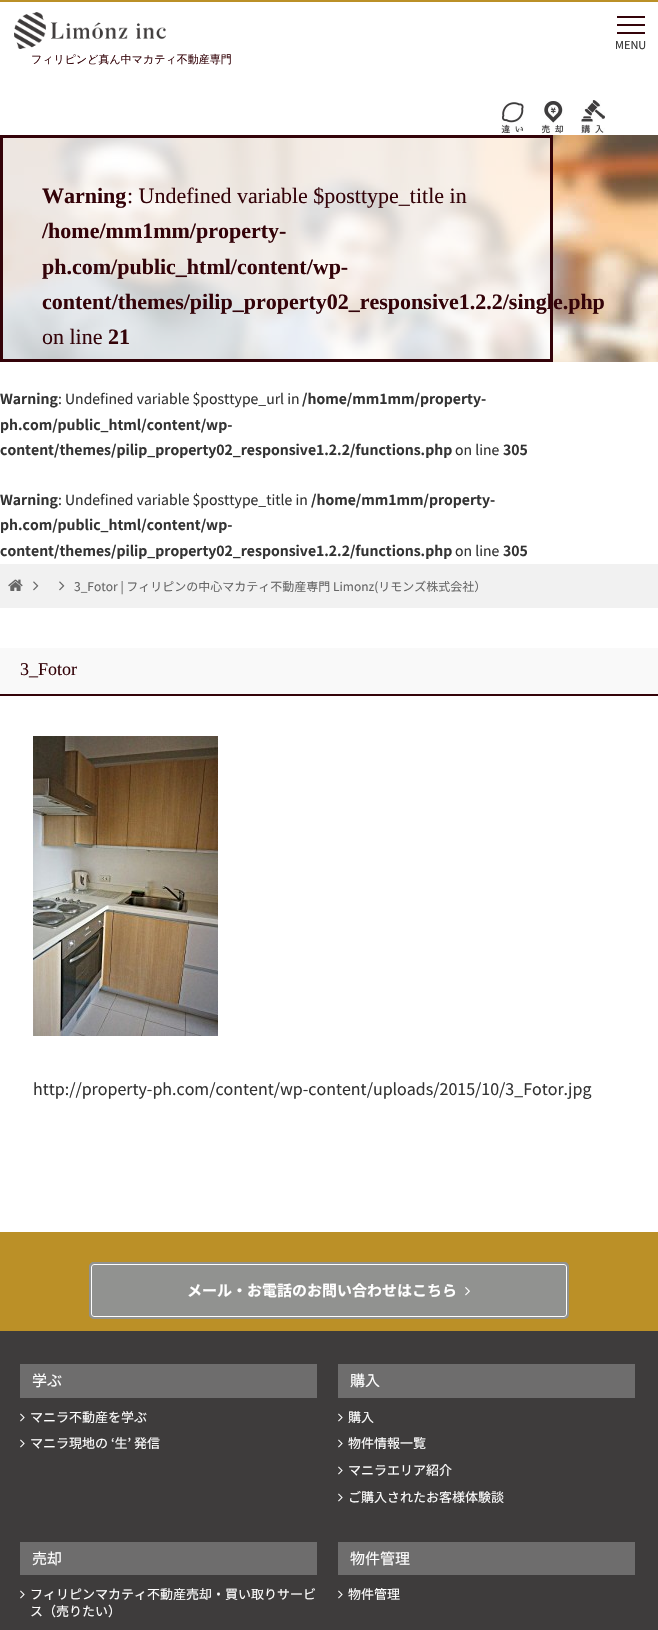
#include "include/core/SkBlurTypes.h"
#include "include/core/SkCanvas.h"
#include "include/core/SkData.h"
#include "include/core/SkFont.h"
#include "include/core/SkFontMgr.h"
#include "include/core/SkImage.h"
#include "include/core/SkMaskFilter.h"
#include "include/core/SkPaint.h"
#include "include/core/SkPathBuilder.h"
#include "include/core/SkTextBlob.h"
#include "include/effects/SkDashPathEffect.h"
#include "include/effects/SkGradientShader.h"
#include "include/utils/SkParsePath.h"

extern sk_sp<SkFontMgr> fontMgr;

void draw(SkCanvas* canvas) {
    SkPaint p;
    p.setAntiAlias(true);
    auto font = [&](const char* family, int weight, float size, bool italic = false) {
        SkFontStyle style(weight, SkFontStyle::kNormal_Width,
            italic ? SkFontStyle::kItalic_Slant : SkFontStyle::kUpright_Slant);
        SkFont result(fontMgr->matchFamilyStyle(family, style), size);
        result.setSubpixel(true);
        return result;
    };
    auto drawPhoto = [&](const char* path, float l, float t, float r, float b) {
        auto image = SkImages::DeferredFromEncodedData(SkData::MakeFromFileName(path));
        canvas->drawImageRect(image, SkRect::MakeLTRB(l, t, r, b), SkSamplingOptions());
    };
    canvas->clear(0xFFFFFFFF);
    {
        const struct { float l, t, r, b; SkColor color; } items[] = {
            {0, 0, 658, 2, 0xFFBB9027},
            {617, 16, 645, 18, 0xFF340309},
            {617, 24, 645, 26, 0xFF340309},
            {617, 32, 645, 34, 0xFF340309},
        };
        for (auto [l, t, r, b, color] : items) {
            p.setColor(color);
            canvas->drawRect(SkRect::MakeLTRB(l, t, r, b), p);
        }
    }
    auto font1 = font("Noto Sans CJK JP", 400, 11);
    p.setColor(0xFF333333);
    canvas->drawString("MENU", 615, 49, font1, p);
    drawPhoto("media/1.png", 14, 12, 166, 49);
    auto font2 = font("WenQuanYi Zen Hei", 500, 11);
    p.setColor(0xFF340309);
    canvas->drawString("フィリピンど真ん中マカティ不動産専門", 31, 63, font2, p);
    drawPhoto("media/2.png", 501, 102, 524, 133);
    drawPhoto("media/3.png", 541, 101, 564, 134);
    drawPhoto("media/4.png", 581, 100, 605, 134);
    drawPhoto("media/5.png", 3, 135, 658, 362);
    p.setColor(0xB3FFFFFF);
    canvas->drawRect(SkRect::MakeLTRB(1.5f, 136.5f, 551.5f, 360.5f), p);
    p.setStyle(SkPaint::kStroke_Style);
    p.setStrokeWidth(3);
    p.setColor(0xFF340309);
    canvas->drawRect(SkRect::MakeLTRB(1.5f, 136.5f, 551.5f, 360.5f), p);
    auto font3 = font("Liberation Serif", 700, 22);
    p.setStyle(SkPaint::kFill_Style);
    canvas->drawString("Warning", 42, 203, font3, p);
    auto font4 = font("Liberation Serif", 400, 22);
    canvas->drawString(": Undefined variable $posttype_title in", 127, 203, font4, p);
    {
        const struct { const char* s; float x, y; } items[] = {
            {"/home/mm1mm/property-", 42, 238},
            {"ph.com/public_html/content/wp-", 42, 274},
            {"content/themes/pilip_property02_responsive1.2.2/single.php", 42, 309},
        };
        for (auto [s, x, y] : items) {
            canvas->drawString(s, x, y, font3, p);
        }
    }
    canvas->drawString("on line", 42, 344, font4, p);
    canvas->drawString("21", 108, 344, font3, p);
    auto font5 = font("Noto Sans CJK JP", 700, 14);
    p.setColor(0xFF333333);
    canvas->drawString("Warning", 0, 404, font5, p);
    auto font6 = font("Noto Sans CJK JP", 400, 14);
    canvas->drawString(": Undefined variable $posttype_url in", 58, 404, font6, p);
    {
        const struct { const char* s; float x, y; } items[] = {
            {"/home/mm1mm/property-", 302, 404},
            {"ph.com/public_html/content/wp-", 0, 430},
            {"content/themes/pilip_property02_responsive1.2.2/functions.php", 0, 455},
        };
        for (auto [s, x, y] : items) {
            canvas->drawString(s, x, y, font5, p);
        }
    }
    canvas->drawString("on line", 455, 455, font6, p);
    canvas->drawString("305", 503, 455, font5, p);
    canvas->drawString("Warning", 0, 505, font5, p);
    canvas->drawString(": Undefined variable $posttype_title in", 58, 505, font6, p);
    {
        const struct { const char* s; float x, y; } items[] = {
            {"/home/mm1mm/property-", 311, 505},
            {"ph.com/public_html/content/wp-", 0, 530},
            {"content/themes/pilip_property02_responsive1.2.2/functions.php", 0, 556},
        };
        for (auto [s, x, y] : items) {
            canvas->drawString(s, x, y, font5, p);
        }
    }
    canvas->drawString("on line", 455, 556, font6, p);
    canvas->drawString("305", 503, 556, font5, p);
    p.setColor(0xFFF1F1F1);
    canvas->drawRect(SkRect::MakeLTRB(0, 564, 658, 608), p);
    drawPhoto("media/6.png", 8, 579, 23, 591);
    drawPhoto("media/7.png", 33, 581, 39, 591);
    drawPhoto("media/7.png", 59, 581, 65, 591);
    auto font7 = font("Noto Sans CJK JP", 400, 12);
    p.setColor(0xFF666666);
    canvas->drawString("3_Fotor | フィリピンの中心マカティ不動産専門 Limonz(リモンズ株式会社）", 74, 591, font7, p);
    p.setColor(0xFFF9F9F9);
    canvas->drawRect(SkRect::MakeLTRB(0, 648, 658, 694), p);
    p.setColor(0xFF340309);
    canvas->drawRect(SkRect::MakeLTRB(0, 694, 658, 696), p);
    auto font8 = font("Liberation Serif", 400, 18);
    canvas->drawString("3_Fotor", 20, 675, font8, p);
    drawPhoto("media/8.png", 33, 736, 218, 1036);
    auto font9 = font("Noto Sans CJK JP", 400, 16);
    p.setColor(0xFF333333);
    canvas->drawString("http://property-ph.com/content/wp-content/uploads/2015/10/3_Fotor.jpg", 33, 1095, font9, p);
    p.setColor(0xFFBB9027);
    canvas->drawRect(SkRect::MakeLTRB(0, 1232, 658, 1331), p);
    p.setColor(0xFF919290);
    canvas->drawRoundRect(SkRect::MakeLTRB(89, 1262, 569, 1319), 5, 5, p);
    p.setStyle(SkPaint::kStroke_Style);
    p.setStrokeWidth(1);
    p.setColor(0xFFFFFFFF);
    canvas->drawRoundRect(SkRect::MakeLTRB(91.5f, 1264.5f, 566.5f, 1316.5f), 2.5f, 2.5f, p);
    p.setStrokeWidth(2);
    p.setColor(0xFF919290);
    canvas->drawRoundRect(SkRect::MakeLTRB(90, 1263, 568, 1318), 4, 4, p);
    auto font10 = font("Noto Sans CJK JP", 700, 15);
    p.setStyle(SkPaint::kFill_Style);
    p.setColor(0xFFFFFFFF);
    canvas->drawString("メール・お電話のお問い合わせはこちら", 187, 1296, font10, p);
    drawPhoto("media/9.png", 465, 1287, 470, 1296);
    p.setColor(0xFF3E3C3C);
    canvas->drawRect(SkRect::MakeLTRB(0, 1331, 658, 1630), p);
    p.setColor(0xFF6E6D6D);
    canvas->drawRect(SkRect::MakeLTRB(20, 1364, 317, 1398), p);
    auto font11 = font("Noto Sans CJK JP", 400, 15);
    p.setColor(0xFFFFFFFF);
    canvas->drawString("学ぶ", 32, 1386, font11, p);
    drawPhoto("media/10.png", 20, 1413, 25, 1422);
    auto font12 = font("Noto Sans CJK JP", 400, 13);
    canvas->drawString("マニラ不動産を学ぶ", 30, 1422, font12, p);
    drawPhoto("media/10.png", 20, 1439, 25, 1448);
    canvas->drawString("マニラ現地の ‘生’ 発信", 30, 1448, font12, p);
    p.setColor(0xFF6E6D6D);
    canvas->drawRect(SkRect::MakeLTRB(338, 1364, 635, 1398), p);
    p.setColor(0xFFFFFFFF);
    canvas->drawString("購入", 350, 1386, font11, p);
    drawPhoto("media/10.png", 338, 1413, 343, 1422);
    canvas->drawString("購入", 348, 1422, font12, p);
    drawPhoto("media/10.png", 338, 1439, 343, 1448);
    canvas->drawString("物件情報一覧", 348, 1448, font12, p);
    drawPhoto("media/10.png", 338, 1466, 343, 1475);
    canvas->drawString("マニラエリア紹介", 348, 1475, font12, p);
    drawPhoto("media/10.png", 338, 1493, 343, 1502);
    canvas->drawString("ご購入されたお客様体験談", 348, 1502, font12, p);
    p.setColor(0xFF6E6D6D);
    canvas->drawRect(SkRect::MakeLTRB(20, 1542, 317, 1575), p);
    p.setColor(0xFFFFFFFF);
    canvas->drawString("売却", 32, 1564, font11, p);
    drawPhoto("media/10.png", 20, 1590, 25, 1599);
    canvas->drawString("フィリピンマカティ不動産売却・買い取りサービ", 30, 1599, font12, p);
    canvas->drawString("ス（売りたい）", 30, 1616, font12, p);
    p.setColor(0xFF6E6D6D);
    canvas->drawRect(SkRect::MakeLTRB(338, 1542, 635, 1575), p);
    p.setColor(0xFFFFFFFF);
    canvas->drawString("物件管理", 350, 1564, font11, p);
    drawPhoto("media/10.png", 338, 1590, 343, 1599);
    canvas->drawString("物件管理", 348, 1599, font12, p);
}
